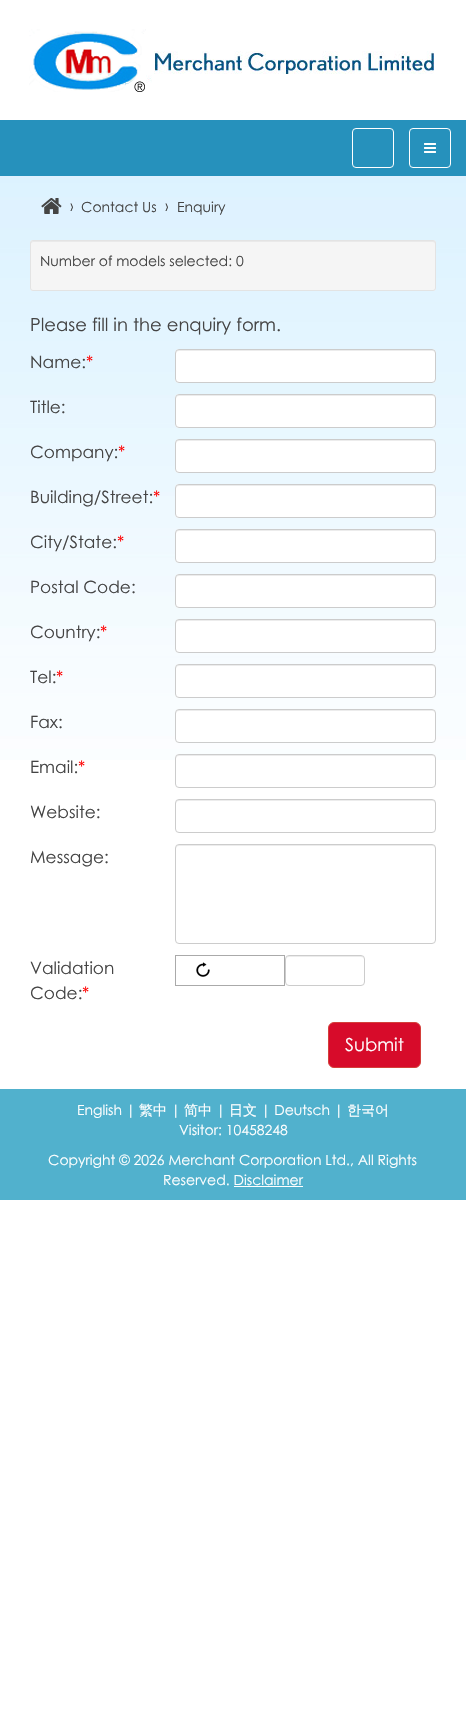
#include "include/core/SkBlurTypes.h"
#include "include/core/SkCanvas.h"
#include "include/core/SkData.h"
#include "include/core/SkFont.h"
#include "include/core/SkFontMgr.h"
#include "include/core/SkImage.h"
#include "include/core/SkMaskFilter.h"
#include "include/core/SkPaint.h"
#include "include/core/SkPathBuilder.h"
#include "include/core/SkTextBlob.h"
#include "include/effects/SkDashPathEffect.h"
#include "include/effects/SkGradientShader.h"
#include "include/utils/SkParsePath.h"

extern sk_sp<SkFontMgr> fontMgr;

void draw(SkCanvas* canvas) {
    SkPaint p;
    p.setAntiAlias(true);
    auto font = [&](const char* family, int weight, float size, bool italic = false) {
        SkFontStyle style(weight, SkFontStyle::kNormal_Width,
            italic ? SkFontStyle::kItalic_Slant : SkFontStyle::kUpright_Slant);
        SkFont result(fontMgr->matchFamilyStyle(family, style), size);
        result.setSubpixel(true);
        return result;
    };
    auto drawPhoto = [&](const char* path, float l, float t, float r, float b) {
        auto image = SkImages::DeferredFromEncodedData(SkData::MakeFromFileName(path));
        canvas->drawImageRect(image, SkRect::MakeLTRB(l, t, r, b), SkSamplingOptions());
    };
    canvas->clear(0xFFFFFFFF);
    drawPhoto("media/1.png", 29, 29, 434, 92);
    p.setColor(0xFF2691BC);
    canvas->drawRect(SkRect::MakeLTRB(0, 120, 466, 176), p);
    p.setStyle(SkPaint::kStroke_Style);
    p.setStrokeWidth(1);
    p.setColor(0xFFFFFFFF);
    canvas->drawRoundRect(SkRect::MakeLTRB(352.5f, 128.5f, 393.5f, 167.5f), 3.5f, 3.5f, p);
    canvas->drawRoundRect(SkRect::MakeLTRB(409.5f, 128.5f, 450.5f, 167.5f), 3.5f, 3.5f, p);
    drawPhoto("media/2.png", 424, 143, 436, 153);
    drawPhoto("media/3.png", 0, 176, 466, 760);
    drawPhoto("media/4.png", 41, 198, 62, 214);
    auto font1 = font("Century Gothic", 400, 14);
    p.setStyle(SkPaint::kFill_Style);
    p.setColor(0xFF444444);
    {
        const struct { const char* s; float x, y; } items[] = {
            {"›", 70, 211},
            {"Contact Us", 81, 212},
            {"›", 165, 211},
            {"Enquiry", 177, 212},
        };
        for (auto [s, x, y] : items) {
            canvas->drawString(s, x, y, font1, p);
        }
    }
    p.setColor(0xFFF5F5F5);
    canvas->drawRoundRect(SkRect::MakeLTRB(30, 240, 436, 291), 3, 3, p);
    p.setColor(0xFFE9E9E9);
    canvas->drawPath(SkPathBuilder().moveTo(33, 242).lineTo(433, 242).cubicTo(434, 242, 435, 243, 435, 244).cubicTo(435, 243, 435, 242, 434, 241).lineTo(33, 241).lineTo(31, 242).lineTo(31, 244).cubicTo(31, 243, 32, 242, 33, 242).close().detach(), p);
    p.setStyle(SkPaint::kStroke_Style);
    p.setColor(0xFFE3E3E3);
    canvas->drawRoundRect(SkRect::MakeLTRB(30.5f, 240.5f, 435.5f, 290.5f), 2.5f, 2.5f, p);
    p.setStyle(SkPaint::kFill_Style);
    p.setColor(0xFF444444);
    canvas->drawString("Number of models selected: 0", 40, 266, font1, p);
    auto font2 = font("Century Gothic", 400, 18);
    canvas->drawString("Please fill in the enquiry form.", 30, 331, font2, p);
    auto font3 = font("Century Gothic", 400, 17);
    canvas->drawString("Name:", 30, 368, font3, p);
    p.setColor(0xFFFF0000);
    canvas->drawString("*", 86, 368, font3, p);
    p.setColor(0xFFFFFFFF);
    canvas->drawRoundRect(SkRect::MakeLTRB(175, 349, 436, 383), 4, 4, p);
    p.setColor(0xFFECECEC);
    canvas->drawPath(SkPathBuilder().moveTo(179, 351).lineTo(433, 351).lineTo(435, 352).lineTo(435, 354).lineTo(435, 353).cubicTo(435, 351, 434, 350, 432, 350).lineTo(179, 350).cubicTo(177, 350, 176, 351, 176, 353).lineTo(176, 354).cubicTo(176, 352, 177, 351, 179, 351).close().detach(), p);
    p.setStyle(SkPaint::kStroke_Style);
    p.setColor(0xFFCCCCCC);
    canvas->drawRoundRect(SkRect::MakeLTRB(175.5f, 349.5f, 435.5f, 382.5f), 3.5f, 3.5f, p);
    p.setStyle(SkPaint::kFill_Style);
    p.setColor(0xFF444444);
    canvas->drawString("Title:", 30, 413, font3, p);
    p.setColor(0xFFFFFFFF);
    canvas->drawRoundRect(SkRect::MakeLTRB(175, 394, 436, 428), 4, 4, p);
    p.setColor(0xFFECECEC);
    canvas->drawPath(SkPathBuilder().moveTo(179, 396).lineTo(433, 396).lineTo(435, 397).lineTo(435, 399).lineTo(435, 398).cubicTo(435, 396, 434, 395, 432, 395).lineTo(179, 395).cubicTo(177, 395, 176, 396, 176, 398).lineTo(176, 399).cubicTo(176, 397, 177, 396, 179, 396).close().detach(), p);
    p.setStyle(SkPaint::kStroke_Style);
    p.setColor(0xFFCCCCCC);
    canvas->drawRoundRect(SkRect::MakeLTRB(175.5f, 394.5f, 435.5f, 427.5f), 3.5f, 3.5f, p);
    p.setStyle(SkPaint::kFill_Style);
    p.setColor(0xFF444444);
    canvas->drawString("Company:", 30, 458, font3, p);
    p.setColor(0xFFFF0000);
    canvas->drawString("*", 118, 458, font3, p);
    p.setColor(0xFFFFFFFF);
    canvas->drawRoundRect(SkRect::MakeLTRB(175, 439, 436, 473), 4, 4, p);
    p.setColor(0xFFECECEC);
    canvas->drawPath(SkPathBuilder().moveTo(179, 441).lineTo(433, 441).lineTo(435, 442).lineTo(435, 444).lineTo(435, 443).cubicTo(435, 441, 434, 440, 432, 440).lineTo(179, 440).cubicTo(177, 440, 176, 441, 176, 443).lineTo(176, 444).cubicTo(176, 442, 177, 441, 179, 441).close().detach(), p);
    p.setStyle(SkPaint::kStroke_Style);
    p.setColor(0xFFCCCCCC);
    canvas->drawRoundRect(SkRect::MakeLTRB(175.5f, 439.5f, 435.5f, 472.5f), 3.5f, 3.5f, p);
    p.setStyle(SkPaint::kFill_Style);
    p.setColor(0xFF444444);
    canvas->drawString("Building/Street:", 30, 503, font3, p);
    p.setColor(0xFFFF0000);
    canvas->drawString("*", 153, 503, font3, p);
    p.setColor(0xFFFFFFFF);
    canvas->drawRoundRect(SkRect::MakeLTRB(175, 484, 436, 518), 4, 4, p);
    p.setColor(0xFFECECEC);
    canvas->drawPath(SkPathBuilder().moveTo(179, 486).lineTo(433, 486).lineTo(435, 487).lineTo(435, 489).lineTo(435, 488).cubicTo(435, 486, 434, 485, 432, 485).lineTo(179, 485).cubicTo(177, 485, 176, 486, 176, 488).lineTo(176, 489).cubicTo(176, 487, 177, 486, 179, 486).close().detach(), p);
    p.setStyle(SkPaint::kStroke_Style);
    p.setColor(0xFFCCCCCC);
    canvas->drawRoundRect(SkRect::MakeLTRB(175.5f, 484.5f, 435.5f, 517.5f), 3.5f, 3.5f, p);
    p.setStyle(SkPaint::kFill_Style);
    p.setColor(0xFF444444);
    canvas->drawString("City/State:", 30, 548, font3, p);
    p.setColor(0xFFFF0000);
    canvas->drawString("*", 117, 548, font3, p);
    p.setColor(0xFFFFFFFF);
    canvas->drawRoundRect(SkRect::MakeLTRB(175, 529, 436, 563), 4, 4, p);
    p.setColor(0xFFECECEC);
    canvas->drawPath(SkPathBuilder().moveTo(179, 531).lineTo(433, 531).lineTo(435, 532).lineTo(435, 534).lineTo(435, 533).cubicTo(435, 531, 434, 530, 432, 530).lineTo(179, 530).cubicTo(177, 530, 176, 531, 176, 533).lineTo(176, 534).cubicTo(176, 532, 177, 531, 179, 531).close().detach(), p);
    p.setStyle(SkPaint::kStroke_Style);
    p.setColor(0xFFCCCCCC);
    canvas->drawRoundRect(SkRect::MakeLTRB(175.5f, 529.5f, 435.5f, 562.5f), 3.5f, 3.5f, p);
    p.setStyle(SkPaint::kFill_Style);
    p.setColor(0xFF444444);
    canvas->drawString("Postal Code:", 30, 593, font3, p);
    p.setColor(0xFFFFFFFF);
    canvas->drawRoundRect(SkRect::MakeLTRB(175, 574, 436, 608), 4, 4, p);
    p.setColor(0xFFECECEC);
    canvas->drawPath(SkPathBuilder().moveTo(179, 576).lineTo(433, 576).lineTo(435, 577).lineTo(435, 579).lineTo(435, 578).cubicTo(435, 576, 434, 575, 432, 575).lineTo(179, 575).cubicTo(177, 575, 176, 576, 176, 578).lineTo(176, 579).cubicTo(176, 577, 177, 576, 179, 576).close().detach(), p);
    p.setStyle(SkPaint::kStroke_Style);
    p.setColor(0xFFCCCCCC);
    canvas->drawRoundRect(SkRect::MakeLTRB(175.5f, 574.5f, 435.5f, 607.5f), 3.5f, 3.5f, p);
    p.setStyle(SkPaint::kFill_Style);
    p.setColor(0xFF444444);
    canvas->drawString("Country:", 30, 638, font3, p);
    p.setColor(0xFFFF0000);
    canvas->drawString("*", 100, 638, font3, p);
    p.setColor(0xFFFFFFFF);
    canvas->drawRoundRect(SkRect::MakeLTRB(175, 619, 436, 653), 4, 4, p);
    p.setColor(0xFFECECEC);
    canvas->drawPath(SkPathBuilder().moveTo(179, 621).lineTo(433, 621).lineTo(435, 622).lineTo(435, 624).lineTo(435, 623).cubicTo(435, 621, 434, 620, 432, 620).lineTo(179, 620).cubicTo(177, 620, 176, 621, 176, 623).lineTo(176, 624).cubicTo(176, 622, 177, 621, 179, 621).close().detach(), p);
    p.setStyle(SkPaint::kStroke_Style);
    p.setColor(0xFFCCCCCC);
    canvas->drawRoundRect(SkRect::MakeLTRB(175.5f, 619.5f, 435.5f, 652.5f), 3.5f, 3.5f, p);
    p.setStyle(SkPaint::kFill_Style);
    p.setColor(0xFF444444);
    canvas->drawString("Tel:", 30, 683, font3, p);
    p.setColor(0xFFFF0000);
    canvas->drawString("*", 56, 683, font3, p);
    p.setColor(0xFFFFFFFF);
    canvas->drawRoundRect(SkRect::MakeLTRB(175, 664, 436, 698), 4, 4, p);
    p.setColor(0xFFECECEC);
    canvas->drawPath(SkPathBuilder().moveTo(179, 666).lineTo(433, 666).lineTo(435, 667).lineTo(435, 669).lineTo(435, 668).cubicTo(435, 666, 434, 665, 432, 665).lineTo(179, 665).cubicTo(177, 665, 176, 666, 176, 668).lineTo(176, 669).cubicTo(176, 667, 177, 666, 179, 666).close().detach(), p);
    p.setStyle(SkPaint::kStroke_Style);
    p.setColor(0xFFCCCCCC);
    canvas->drawRoundRect(SkRect::MakeLTRB(175.5f, 664.5f, 435.5f, 697.5f), 3.5f, 3.5f, p);
    p.setStyle(SkPaint::kFill_Style);
    p.setColor(0xFF444444);
    canvas->drawString("Fax:", 30, 728, font3, p);
    p.setColor(0xFFFFFFFF);
    canvas->drawRoundRect(SkRect::MakeLTRB(175, 709, 436, 743), 4, 4, p);
    p.setColor(0xFFECECEC);
    canvas->drawPath(SkPathBuilder().moveTo(179, 711).lineTo(433, 711).lineTo(435, 712).lineTo(435, 714).lineTo(435, 713).cubicTo(435, 711, 434, 710, 432, 710).lineTo(179, 710).cubicTo(177, 710, 176, 711, 176, 713).lineTo(176, 714).cubicTo(176, 712, 177, 711, 179, 711).close().detach(), p);
    p.setStyle(SkPaint::kStroke_Style);
    p.setColor(0xFFCCCCCC);
    canvas->drawRoundRect(SkRect::MakeLTRB(175.5f, 709.5f, 435.5f, 742.5f), 3.5f, 3.5f, p);
    p.setStyle(SkPaint::kFill_Style);
    p.setColor(0xFF444444);
    canvas->drawString("Email:", 30, 773, font3, p);
    p.setColor(0xFFFF0000);
    canvas->drawString("*", 78, 773, font3, p);
    p.setColor(0xFFFFFFFF);
    canvas->drawRoundRect(SkRect::MakeLTRB(175, 754, 436, 788), 4, 4, p);
    p.setColor(0xFFECECEC);
    canvas->drawPath(SkPathBuilder().moveTo(179, 756).lineTo(433, 756).lineTo(435, 757).lineTo(435, 759).lineTo(435, 758).cubicTo(435, 756, 434, 755, 432, 755).lineTo(179, 755).cubicTo(177, 755, 176, 756, 176, 758).lineTo(176, 759).cubicTo(176, 757, 177, 756, 179, 756).close().detach(), p);
    p.setStyle(SkPaint::kStroke_Style);
    p.setColor(0xFFCCCCCC);
    canvas->drawRoundRect(SkRect::MakeLTRB(175.5f, 754.5f, 435.5f, 787.5f), 3.5f, 3.5f, p);
    p.setStyle(SkPaint::kFill_Style);
    p.setColor(0xFF444444);
    canvas->drawString("Website:", 30, 818, font3, p);
    p.setColor(0xFFECECEC);
    canvas->drawPath(SkPathBuilder().moveTo(179, 801).lineTo(433, 801).lineTo(435, 802).lineTo(435, 804).lineTo(435, 803).cubicTo(435, 801, 434, 800, 432, 800).lineTo(179, 800).cubicTo(177, 800, 176, 801, 176, 803).lineTo(176, 804).cubicTo(176, 802, 177, 801, 179, 801).close().detach(), p);
    p.setStyle(SkPaint::kStroke_Style);
    p.setColor(0xFFCCCCCC);
    canvas->drawRoundRect(SkRect::MakeLTRB(175.5f, 799.5f, 435.5f, 832.5f), 3.5f, 3.5f, p);
    p.setStyle(SkPaint::kFill_Style);
    p.setColor(0xFF444444);
    canvas->drawString("Message:", 30, 863, font3, p);
    p.setColor(0xFFECECEC);
    canvas->drawPath(SkPathBuilder().moveTo(179, 846).lineTo(433, 846).lineTo(435, 847).lineTo(435, 849).lineTo(435, 848).cubicTo(435, 846, 434, 845, 432, 845).lineTo(179, 845).cubicTo(177, 845, 176, 846, 176, 848).lineTo(176, 849).cubicTo(176, 847, 177, 846, 179, 846).close().detach(), p);
    p.setStyle(SkPaint::kStroke_Style);
    p.setColor(0xFFCCCCCC);
    canvas->drawRoundRect(SkRect::MakeLTRB(175.5f, 844.5f, 435.5f, 943.5f), 3.5f, 3.5f, p);
    p.setStyle(SkPaint::kFill_Style);
    p.setColor(0xFF444444);
    canvas->drawString("Validation", 30, 974, font3, p);
    canvas->drawString("Code:", 30, 999, font3, p);
    p.setColor(0xFFFF0000);
    canvas->drawString("*", 82, 999, font3, p);
    p.setStyle(SkPaint::kStroke_Style);
    p.setColor(0xFFAAAAAA);
    canvas->drawRect(SkRect::MakeLTRB(175.5f, 955.5f, 284.5f, 985.5f), p);
    drawPhoto("media/5.png", 196, 962, 210, 977);
    p.setStyle(SkPaint::kFill_Style);
    p.setColor(0xFFECECEC);
    canvas->drawPath(SkPathBuilder().moveTo(289, 957).lineTo(361, 957).cubicTo(363, 957, 364, 958, 364, 960).cubicTo(364, 953, 353, 956, 349, 956).lineTo(301, 956).cubicTo(297, 956, 286, 953, 286, 960).cubicTo(286, 958, 287, 957, 289, 957).close().detach(), p);
    p.setStyle(SkPaint::kStroke_Style);
    p.setColor(0xFFCCCCCC);
    canvas->drawRoundRect(SkRect::MakeLTRB(285.5f, 955.5f, 364.5f, 985.5f), 3.5f, 3.5f, p);
    p.setStyle(SkPaint::kFill_Style);
    p.setColor(0xFFD70B2A);
    canvas->drawRoundRect(SkRect::MakeLTRB(328.5f, 1022.5f, 420.5f, 1067.5f), 5.5f, 5.5f, p);
    p.setStyle(SkPaint::kStroke_Style);
    p.setColor(0xFFD43F3A);
    canvas->drawRoundRect(SkRect::MakeLTRB(328.5f, 1022.5f, 420.5f, 1067.5f), 5.5f, 5.5f, p);
    p.setStyle(SkPaint::kFill_Style);
    p.setColor(0xFFFFFFFF);
    canvas->drawString("Submit", 345, 1051, font2, p);
    p.setColor(0xFF51B1CD);
    canvas->drawRect(SkRect::MakeLTRB(0, 1089, 466, 1200), p);
    p.setColor(0xFFFFFFFF);
    canvas->drawString("English |", 77, 1115, font1, p);
    auto font4 = font("WenQuanYi Zen Hei", 500, 14);
    canvas->drawString("繁中", 139, 1115, font4, p);
    canvas->drawString("|", 171, 1115, font1, p);
    canvas->drawString("简中", 184, 1115, font4, p);
    canvas->drawString("|", 216, 1115, font1, p);
    canvas->drawString("日文", 229, 1115, font4, p);
    canvas->drawString("| Deutsch |", 261, 1115, font1, p);
    canvas->drawString("한국어", 347, 1115, font4, p);
    {
        const struct { const char* s; float x, y; } items[] = {
            {"Visitor: 10458248", 179, 1135},
            {"Copyright © 2026 Merchant Corporation Ltd., All Rights", 48, 1165},
            {"Reserved. Disclaimer", 163, 1185},
        };
        for (auto [s, x, y] : items) {
            canvas->drawString(s, x, y, font1, p);
        }
    }
    canvas->drawRect(SkRect::MakeLTRB(234, 1186, 303, 1187), p);
}
